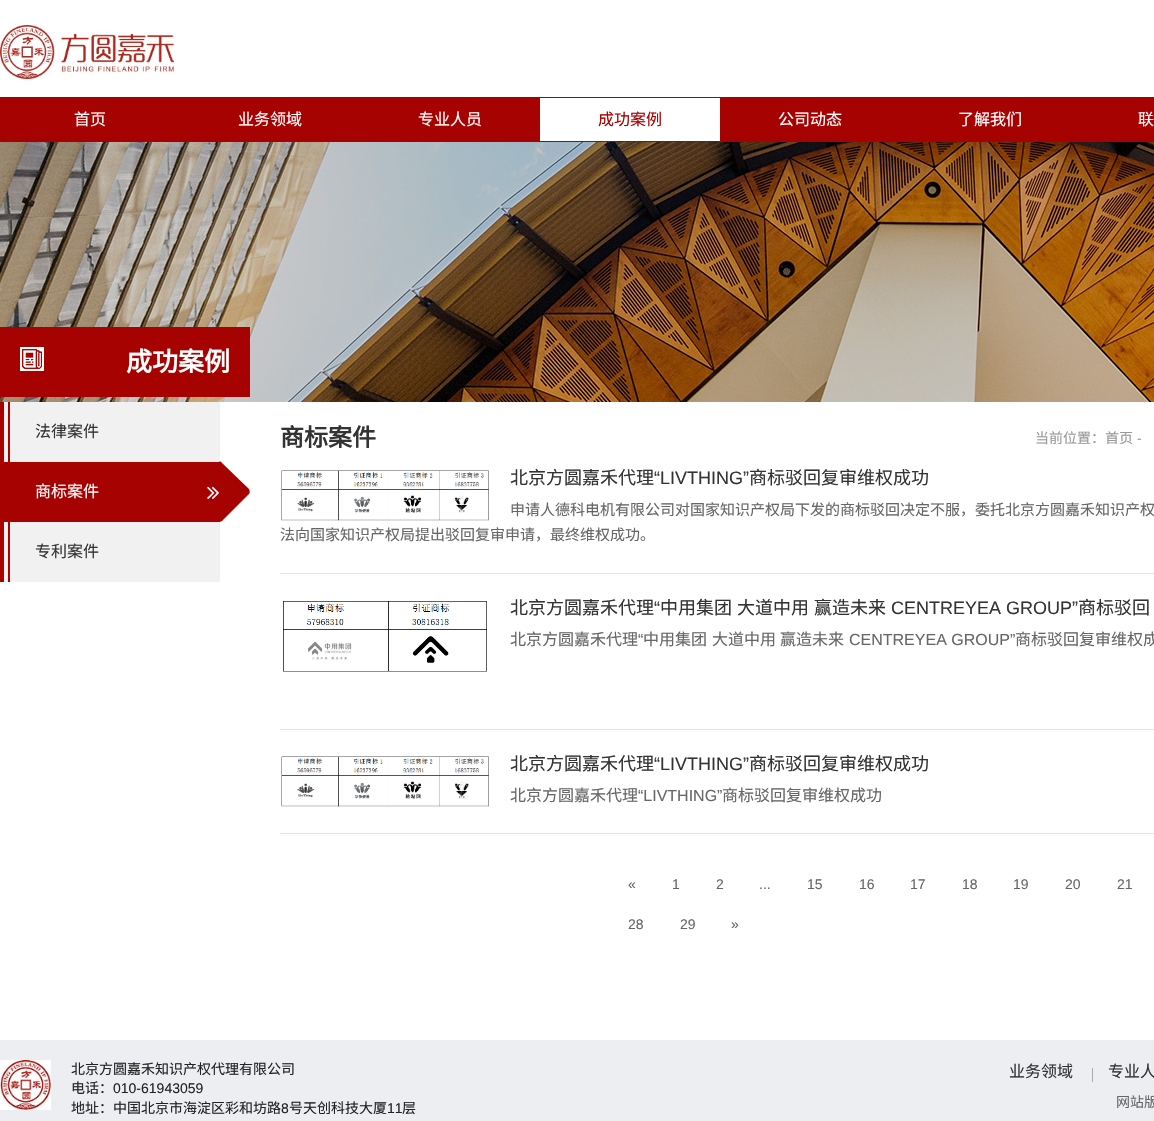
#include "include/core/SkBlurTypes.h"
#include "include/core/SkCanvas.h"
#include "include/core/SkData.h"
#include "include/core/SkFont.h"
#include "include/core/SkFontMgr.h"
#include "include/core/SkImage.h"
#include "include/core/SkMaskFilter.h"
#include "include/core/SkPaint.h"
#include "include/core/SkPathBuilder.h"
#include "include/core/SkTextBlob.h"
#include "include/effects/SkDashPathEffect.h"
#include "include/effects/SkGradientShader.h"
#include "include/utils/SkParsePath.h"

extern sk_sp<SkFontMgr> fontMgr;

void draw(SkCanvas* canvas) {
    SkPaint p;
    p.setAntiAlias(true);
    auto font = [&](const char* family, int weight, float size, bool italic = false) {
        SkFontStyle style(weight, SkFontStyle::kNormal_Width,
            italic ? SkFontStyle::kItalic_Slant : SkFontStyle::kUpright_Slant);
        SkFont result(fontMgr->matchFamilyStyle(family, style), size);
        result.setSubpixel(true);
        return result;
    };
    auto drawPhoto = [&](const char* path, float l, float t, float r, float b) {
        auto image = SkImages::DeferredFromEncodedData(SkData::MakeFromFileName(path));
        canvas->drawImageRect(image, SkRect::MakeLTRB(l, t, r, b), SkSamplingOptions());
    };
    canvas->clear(0xFFFFFFFF);
    drawPhoto("media/1.png", 0, 25, 174, 79);
    p.setColor(0xFFA60201);
    canvas->drawRect(SkRect::MakeLTRB(0, 97, 1154, 142), p);
    auto font1 = font("Noto Sans CJK SC", 400, 16);
    p.setColor(0xFFFFFFFF);
    {
        const struct { const char* s; float x, y; } items[] = {
            {"首页", 74, 125},
            {"业务领域", 238, 125},
            {"专业人员", 418, 125},
        };
        for (auto [s, x, y] : items) {
            canvas->drawString(s, x, y, font1, p);
        }
    }
    canvas->drawRect(SkRect::MakeLTRB(540, 98, 720, 141), p);
    p.setColor(0xFFA60201);
    canvas->drawString("成功案例", 598, 125, font1, p);
    p.setColor(0xFFFFFFFF);
    {
        const struct { const char* s; float x, y; } items[] = {
            {"公司动态", 778, 125},
            {"了解我们", 958, 125},
            {"联", 1138, 125},
        };
        for (auto [s, x, y] : items) {
            canvas->drawString(s, x, y, font1, p);
        }
    }
    drawPhoto("media/2.png", 0, 142, 1154, 402);
    p.setColor(0xFFA60201);
    canvas->drawRect(SkRect::MakeLTRB(0, 327, 250, 397), p);
    drawPhoto("media/3.png", 20, 347, 44, 371);
    auto font2 = font("Noto Sans CJK SC", 700, 26);
    p.setColor(0xFFFFFFFF);
    canvas->drawString("成功案例", 126, 371, font2, p);
    {
        const struct { float l, t, r, b; SkColor color; } items[] = {
            {4, 402, 220, 462, 0xFFF1F1F1},
            {0, 402, 4, 462, 0xFFA60201},
            {8, 402, 10, 462, 0xFFA60201},
        };
        for (auto [l, t, r, b, color] : items) {
            p.setColor(color);
            canvas->drawRect(SkRect::MakeLTRB(l, t, r, b), p);
        }
    }
    p.setColor(0xFF333333);
    canvas->drawString("法律案件", 35, 437, font1, p);
    p.setColor(0xFFA60201);
    canvas->drawRect(SkRect::MakeLTRB(0, 462, 220, 522), p);
    p.setColor(0xFFFFFFFF);
    canvas->drawString("商标案件", 35, 497, font1, p);
    p.setColor(0xFFA60201);
    canvas->drawPath(SkPathBuilder().moveTo(222, 463).lineTo(249, 489).cubicTo(250, 491, 250, 493, 249, 494).lineTo(222, 521).cubicTo(221, 522, 219, 522, 218, 521).lineTo(191, 494).cubicTo(190, 493, 190, 491, 191, 489).lineTo(218, 463).cubicTo(219, 461, 221, 461, 222, 463).close().detach(), p);
    drawPhoto("media/4.png", 207, 486, 219, 499);
    {
        const struct { float l, t, r, b; SkColor color; } items[] = {
            {4, 522, 220, 582, 0xFFF1F1F1},
            {0, 522, 4, 582, 0xFFA60201},
            {8, 522, 10, 582, 0xFFA60201},
        };
        for (auto [l, t, r, b, color] : items) {
            p.setColor(color);
            canvas->drawRect(SkRect::MakeLTRB(l, t, r, b), p);
        }
    }
    p.setColor(0xFF333333);
    canvas->drawString("专利案件", 35, 557, font1, p);
    auto font3 = font("Noto Sans CJK SC", 700, 24);
    canvas->drawString("商标案件", 280, 446, font3, p);
    auto font4 = font("Noto Sans CJK SC", 400, 14);
    p.setColor(0xFF999999);
    canvas->drawString("当前位置：首页", 1035, 443, font4, p);
    auto font5 = font("Liberation Sans", 400, 14);
    canvas->drawString("-", 1137, 443, font5, p);
    p.setColor(0xFFE4E5EA);
    canvas->drawRect(SkRect::MakeLTRB(280, 573, 1154, 574), p);
    drawPhoto("media/5.png", 281, 470, 489, 521);
    auto font6 = font("Noto Sans CJK SC", 400, 18);
    p.setColor(0xFF333333);
    canvas->drawString("北京方圆嘉禾代理", 510, 484, font6, p);
    auto font7 = font("Liberation Sans", 400, 18);
    canvas->drawString("“LIVTHING”", 654, 484, font7, p);
    canvas->drawString("商标驳回复审维权成功", 749, 484, font6, p);
    auto font8 = font("Noto Sans CJK SC", 400, 15);
    p.setColor(0xFF666666);
    canvas->drawString("申请人德科电机有限公司对国家知识产权局下发的商标驳回决定不服，委托北京方圆嘉禾知识产权", 510, 515, font8, p);
    canvas->drawString("法向国家知识产权局提出驳回复审申请，最终维权成功。", 280, 540, font8, p);
    p.setColor(0xFFE4E5EA);
    canvas->drawRect(SkRect::MakeLTRB(280, 729, 1154, 730), p);
    drawPhoto("media/6.png", 283, 601, 487, 672);
    p.setColor(0xFF333333);
    canvas->drawString("北京方圆嘉禾代理", 510, 614, font6, p);
    canvas->drawString("“", 654, 614, font7, p);
    {
        const struct { const char* s; float x, y; } items[] = {
            {"中用集团", 660, 614},
            {"大道中用", 737, 614},
            {"赢造未来", 814, 614},
        };
        for (auto [s, x, y] : items) {
            canvas->drawString(s, x, y, font6, p);
        }
    }
    canvas->drawString("CENTREYEA GROUP”", 891, 614, font7, p);
    canvas->drawString("商标驳回", 1078, 614, font6, p);
    p.setColor(0xFF666666);
    canvas->drawString("北京方圆嘉禾代理", 510, 645, font1, p);
    auto font9 = font("Liberation Sans", 400, 16);
    canvas->drawString("“", 638, 645, font9, p);
    {
        const struct { const char* s; float x, y; } items[] = {
            {"中用集团", 643, 645},
            {"大道中用", 712, 645},
            {"赢造未来", 780, 645},
        };
        for (auto [s, x, y] : items) {
            canvas->drawString(s, x, y, font1, p);
        }
    }
    canvas->drawString("CENTREYEA GROUP”", 849, 645, font9, p);
    canvas->drawString("商标驳回复审维权成", 1015, 645, font1, p);
    p.setColor(0xFFE4E5EA);
    canvas->drawRect(SkRect::MakeLTRB(280, 833, 1154, 834), p);
    drawPhoto("media/7.png", 281, 756, 489, 807);
    p.setColor(0xFF333333);
    canvas->drawString("北京方圆嘉禾代理", 510, 770, font6, p);
    canvas->drawString("“LIVTHING”", 654, 770, font7, p);
    canvas->drawString("商标驳回复审维权成功", 749, 770, font6, p);
    p.setColor(0xFF666666);
    canvas->drawString("北京方圆嘉禾代理", 510, 801, font1, p);
    canvas->drawString("“LIVTHING”", 638, 801, font9, p);
    canvas->drawString("商标驳回复审维权成功", 722, 801, font1, p);
    {
        const struct { const char* s; float x, y; } items[] = {
            {"«", 628, 889},
            {"1", 672, 889},
            {"2", 716, 889},
            {"...", 759, 889},
            {"15", 807, 889},
            {"16", 859, 889},
            {"17", 910, 889},
            {"18", 962, 889},
            {"19", 1013, 889},
            {"20", 1065, 889},
            {"21", 1117, 889},
            {"28", 628, 929},
            {"29", 680, 929},
            {"»", 731, 929},
        };
        for (auto [s, x, y] : items) {
            canvas->drawString(s, x, y, font5, p);
        }
    }
    p.setColor(0xFFEDEEF2);
    canvas->drawRect(SkRect::MakeLTRB(0, 1040, 1154, 1121), p);
    drawPhoto("media/8.png", 0, 1060, 51, 1110);
    p.setColor(0xFF222222);
    canvas->drawString("北京方圆嘉禾知识产权代理有限公司", 71, 1074, font4, p);
    canvas->drawString("电话：", 71, 1093, font4, p);
    canvas->drawString("010-61943059", 113, 1093, font5, p);
    canvas->drawString("地址：中国北京市海淀区彩和坊路", 71, 1113, font4, p);
    canvas->drawString("8", 281, 1113, font5, p);
    canvas->drawString("号天创科技大厦", 289, 1113, font4, p);
    canvas->drawString("11", 387, 1113, font5, p);
    canvas->drawString("层", 402, 1113, font4, p);
    p.setColor(0xFF333333);
    canvas->drawString("业务领域", 1009, 1077, font1, p);
    p.setColor(0xFFAAAAAA);
    canvas->drawRect(SkRect::MakeLTRB(1092, 1068, 1093, 1082), p);
    p.setColor(0xFF333333);
    canvas->drawString("专业人", 1108, 1077, font1, p);
    p.setColor(0xFF666666);
    canvas->drawString("网站版", 1116, 1107, font4, p);
}
